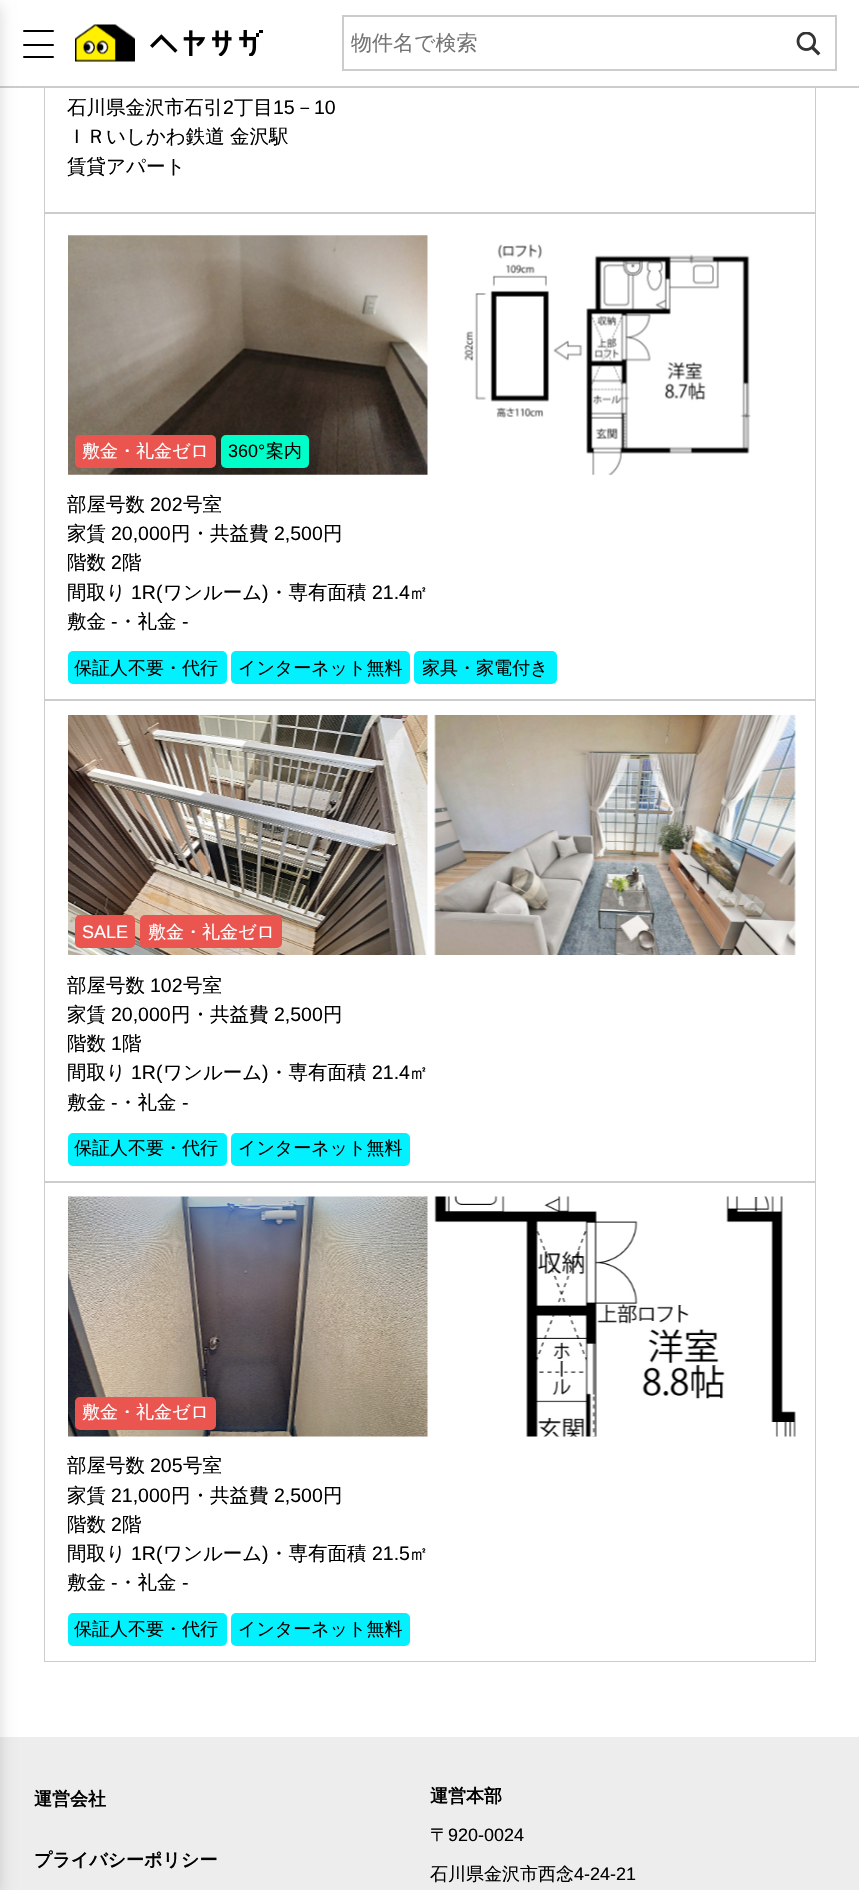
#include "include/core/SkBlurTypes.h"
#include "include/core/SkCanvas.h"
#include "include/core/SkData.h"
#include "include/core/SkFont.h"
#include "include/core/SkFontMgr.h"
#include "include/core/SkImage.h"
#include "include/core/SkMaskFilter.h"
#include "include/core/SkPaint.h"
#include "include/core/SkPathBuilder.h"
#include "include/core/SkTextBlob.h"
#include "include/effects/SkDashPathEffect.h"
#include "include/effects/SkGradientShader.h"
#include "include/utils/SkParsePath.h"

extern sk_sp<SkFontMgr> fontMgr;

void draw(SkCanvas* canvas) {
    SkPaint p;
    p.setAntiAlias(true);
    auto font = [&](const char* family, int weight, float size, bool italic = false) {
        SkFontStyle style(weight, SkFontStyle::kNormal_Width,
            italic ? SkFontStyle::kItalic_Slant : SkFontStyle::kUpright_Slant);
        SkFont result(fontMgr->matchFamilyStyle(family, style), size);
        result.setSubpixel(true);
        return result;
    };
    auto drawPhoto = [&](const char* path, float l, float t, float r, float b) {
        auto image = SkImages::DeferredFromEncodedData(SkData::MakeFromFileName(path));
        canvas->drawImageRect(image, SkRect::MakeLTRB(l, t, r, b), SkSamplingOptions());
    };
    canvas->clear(0xFFFFFFFF);
    p.setStyle(SkPaint::kStroke_Style);
    p.setStrokeWidth(2);
    p.setColor(0xFFCCCCCC);
    canvas->drawRect(SkRect::MakeLTRB(45, -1, 815, 1661), p);
    p.setStyle(SkPaint::kFill_Style);
    {
        const struct { float l, t, r, b; SkColor color; } items[] = {
            {44, 0, 816, 86, 0xFFFFFFFF},
            {0, 86, 859, 88, 0xFFCCCCCC},
            {0, 1737, 859, 1890, 0xFFEDEDED},
        };
        for (auto [l, t, r, b, color] : items) {
            p.setColor(color);
            canvas->drawRect(SkRect::MakeLTRB(l, t, r, b), p);
        }
    }
    p.setColor(0x26000000);
    p.setMaskFilter(SkMaskFilter::MakeBlur(kNormal_SkBlurStyle, 7.5f));
    canvas->drawRect(SkRect::MakeLTRB(-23, 5, 0, 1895), p);
    p.setMaskFilter(nullptr);
    p.setColor(0xFF000000);
    canvas->drawRoundRect(SkRect::MakeLTRB(23, 30, 54, 32), 1, 1, p);
    canvas->drawRoundRect(SkRect::MakeLTRB(23, 44, 54, 46), 1, 1, p);
    canvas->drawRoundRect(SkRect::MakeLTRB(23, 56, 54, 58), 1, 1, p);
    drawPhoto("media/1.png", 75, 24, 135, 62);
    drawPhoto("media/2.png", 150, 30, 263, 56);
    p.setStyle(SkPaint::kStroke_Style);
    p.setColor(0xFFCCCCCC);
    canvas->drawRect(SkRect::MakeLTRB(343, 16, 836, 70), p);
    auto font1 = font("WenQuanYi Zen Hei", 500, 21);
    p.setStyle(SkPaint::kFill_Style);
    p.setColor(0xFF757575);
    canvas->drawString("物件名で検索", 351, 50, font1, p);
    drawPhoto("media/3.png", 796, 32, 821, 56);
    p.setColor(0xFFFFFFFF);
    canvas->drawRect(SkRect::MakeLTRB(45, 88, 815, 1661), p);
    auto font2 = font("WenQuanYi Zen Hei", 500, 19.5f);
    p.setColor(0xFF000000);
    canvas->drawString("石川県金沢市石引", 67, 114, font2, p);
    auto font3 = font("Liberation Sans", 400, 19.5f);
    canvas->drawString("2", 223, 114, font3, p);
    canvas->drawString("丁目", 234, 114, font2, p);
    canvas->drawString("15", 273, 114, font3, p);
    canvas->drawString("－", 295, 114, font2, p);
    canvas->drawString("10", 314, 114, font3, p);
    {
        const struct { const char* s; float x, y; } items[] = {
            {"ＩＲいしかわ鉄道", 67, 143},
            {"金沢駅", 230, 143},
            {"賃貸アパート", 67, 173},
        };
        for (auto [s, x, y] : items) {
            canvas->drawString(s, x, y, font2, p);
        }
    }
    p.setColor(0xFFCCCCCC);
    canvas->drawRect(SkRect::MakeLTRB(45, 699, 815, 701), p);
    canvas->drawRect(SkRect::MakeLTRB(45, 212, 815, 214), p);
    drawPhoto("media/4.png", 68, 235, 428, 475);
    drawPhoto("media/5.png", 464, 244, 751, 475);
    p.setColor(0xFFEA5550);
    canvas->drawRoundRect(SkRect::MakeLTRB(75, 435, 216, 468), 5, 5, p);
    auto font4 = font("WenQuanYi Zen Hei", 500, 18);
    p.setColor(0xFFFFFFFF);
    canvas->drawString("敷金・礼金ゼロ", 82, 457, font4, p);
    p.setColor(0xFF00FFC8);
    canvas->drawRoundRect(SkRect::MakeLTRB(221, 435, 309, 468), 5, 5, p);
    auto font5 = font("Liberation Sans", 400, 18);
    p.setColor(0xFF000000);
    canvas->drawString("360°", 228, 457, font5, p);
    canvas->drawString("案内", 266, 457, font4, p);
    canvas->drawString("部屋号数", 67, 511, font2, p);
    canvas->drawString("202", 150, 511, font3, p);
    canvas->drawString("号室", 183, 511, font2, p);
    canvas->drawString("家賃", 67, 540, font2, p);
    canvas->drawString("20,000", 111, 540, font3, p);
    canvas->drawString("円・共益費", 171, 540, font2, p);
    canvas->drawString("2,500", 274, 540, font3, p);
    canvas->drawString("円", 323, 540, font2, p);
    canvas->drawString("階数", 67, 569, font2, p);
    canvas->drawString("2", 111, 569, font3, p);
    canvas->drawString("階", 122, 569, font2, p);
    canvas->drawString("間取り", 67, 599, font2, p);
    canvas->drawString("1R(", 131, 599, font3, p);
    canvas->drawString("ワンルーム", 163, 599, font2, p);
    canvas->drawString(")", 262, 599, font3, p);
    canvas->drawString("・専有面積", 269, 599, font2, p);
    canvas->drawString("21.4", 372, 599, font3, p);
    canvas->drawString("㎡", 409, 599, font2, p);
    canvas->drawString("敷金", 67, 628, font2, p);
    canvas->drawString("-", 111, 628, font3, p);
    canvas->drawString("・礼金", 118, 628, font2, p);
    canvas->drawString("-", 182, 628, font3, p);
    p.setColor(0xFF03F1FF);
    canvas->drawRoundRect(SkRect::MakeLTRB(68, 651, 227, 684), 5, 5, p);
    p.setColor(0xFF000000);
    canvas->drawString("保証人不要・代行", 74, 674, font4, p);
    p.setColor(0xFF03F1FF);
    canvas->drawRoundRect(SkRect::MakeLTRB(231, 651, 410, 684), 5, 5, p);
    p.setColor(0xFF000000);
    canvas->drawString("インターネット無料", 238, 674, font4, p);
    p.setColor(0xFF03F1FF);
    canvas->drawRoundRect(SkRect::MakeLTRB(414, 651, 557, 684), 5, 5, p);
    p.setColor(0xFF000000);
    canvas->drawString("家具・家電付き", 422, 674, font4, p);
    p.setColor(0xFFCCCCCC);
    canvas->drawRect(SkRect::MakeLTRB(45, 1181, 815, 1183), p);
    drawPhoto("media/6.png", 68, 715, 428, 955);
    drawPhoto("media/7.png", 434, 715, 796, 955);
    p.setColor(0xFFEA5550);
    canvas->drawRoundRect(SkRect::MakeLTRB(75, 915, 135, 948), 5, 5, p);
    p.setColor(0xFFFFFFFF);
    canvas->drawString("SALE", 82, 938, font5, p);
    p.setColor(0xFFEA5550);
    canvas->drawRoundRect(SkRect::MakeLTRB(140, 915, 282, 948), 5, 5, p);
    p.setColor(0xFFFFFFFF);
    canvas->drawString("敷金・礼金ゼロ", 148, 938, font4, p);
    p.setColor(0xFF000000);
    canvas->drawString("部屋号数", 67, 992, font2, p);
    canvas->drawString("102", 150, 992, font3, p);
    canvas->drawString("号室", 183, 992, font2, p);
    canvas->drawString("家賃", 67, 1021, font2, p);
    canvas->drawString("20,000", 111, 1021, font3, p);
    canvas->drawString("円・共益費", 171, 1021, font2, p);
    canvas->drawString("2,500", 274, 1021, font3, p);
    canvas->drawString("円", 323, 1021, font2, p);
    canvas->drawString("階数", 67, 1050, font2, p);
    canvas->drawString("1", 111, 1050, font3, p);
    canvas->drawString("階", 122, 1050, font2, p);
    canvas->drawString("間取り", 67, 1079, font2, p);
    canvas->drawString("1R(", 131, 1079, font3, p);
    canvas->drawString("ワンルーム", 163, 1079, font2, p);
    canvas->drawString(")", 262, 1079, font3, p);
    canvas->drawString("・専有面積", 269, 1079, font2, p);
    canvas->drawString("21.4", 372, 1079, font3, p);
    canvas->drawString("㎡", 409, 1079, font2, p);
    canvas->drawString("敷金", 67, 1109, font2, p);
    canvas->drawString("-", 111, 1109, font3, p);
    canvas->drawString("・礼金", 118, 1109, font2, p);
    canvas->drawString("-", 182, 1109, font3, p);
    p.setColor(0xFF03F1FF);
    canvas->drawRoundRect(SkRect::MakeLTRB(68, 1133, 227, 1166), 5, 5, p);
    p.setColor(0xFF000000);
    canvas->drawString("保証人不要・代行", 74, 1154, font4, p);
    p.setColor(0xFF03F1FF);
    canvas->drawRoundRect(SkRect::MakeLTRB(231, 1133, 410, 1166), 5, 5, p);
    p.setColor(0xFF000000);
    canvas->drawString("インターネット無料", 238, 1154, font4, p);
    drawPhoto("media/8.png", 68, 1196, 428, 1437);
    drawPhoto("media/9.png", 434, 1196, 796, 1437);
    p.setColor(0xFFEA5550);
    canvas->drawRoundRect(SkRect::MakeLTRB(75, 1397, 216, 1430), 5, 5, p);
    p.setColor(0xFFFFFFFF);
    canvas->drawString("敷金・礼金ゼロ", 82, 1418, font4, p);
    p.setColor(0xFF000000);
    canvas->drawString("部屋号数", 67, 1472, font2, p);
    canvas->drawString("205", 150, 1472, font3, p);
    canvas->drawString("号室", 183, 1472, font2, p);
    canvas->drawString("家賃", 67, 1502, font2, p);
    canvas->drawString("21,000", 111, 1502, font3, p);
    canvas->drawString("円・共益費", 171, 1502, font2, p);
    canvas->drawString("2,500", 274, 1502, font3, p);
    canvas->drawString("円", 323, 1502, font2, p);
    canvas->drawString("階数", 67, 1531, font2, p);
    canvas->drawString("2", 111, 1531, font3, p);
    canvas->drawString("階", 122, 1531, font2, p);
    canvas->drawString("間取り", 67, 1560, font2, p);
    canvas->drawString("1R(", 131, 1560, font3, p);
    canvas->drawString("ワンルーム", 163, 1560, font2, p);
    canvas->drawString(")", 262, 1560, font3, p);
    canvas->drawString("・専有面積", 269, 1560, font2, p);
    canvas->drawString("21.5", 372, 1560, font3, p);
    canvas->drawString("㎡", 409, 1560, font2, p);
    canvas->drawString("敷金", 67, 1589, font2, p);
    canvas->drawString("-", 111, 1589, font3, p);
    canvas->drawString("・礼金", 118, 1589, font2, p);
    canvas->drawString("-", 182, 1589, font3, p);
    p.setColor(0xFF03F1FF);
    canvas->drawRoundRect(SkRect::MakeLTRB(68, 1613, 227, 1646), 5, 5, p);
    p.setColor(0xFF000000);
    canvas->drawString("保証人不要・代行", 74, 1635, font4, p);
    p.setColor(0xFF03F1FF);
    canvas->drawRoundRect(SkRect::MakeLTRB(231, 1613, 410, 1646), 5, 5, p);
    p.setColor(0xFF000000);
    canvas->drawString("インターネット無料", 238, 1635, font4, p);
    auto font6 = font("WenQuanYi Zen Hei", 700, 18);
    {
        const struct { const char* s; float x, y; } items[] = {
            {"運営会社", 34, 1805},
            {"プライバシーポリシー", 34, 1866},
            {"運営本部", 430, 1802},
        };
        for (auto [s, x, y] : items) {
            canvas->drawString(s, x, y, font6, p);
        }
    }
    canvas->drawString("〒", 430, 1841, font4, p);
    canvas->drawString("920-0024", 448, 1841, font5, p);
    canvas->drawString("石川県金沢市西念", 430, 1880, font4, p);
    canvas->drawString("4-24-21", 574, 1880, font5, p);
}
